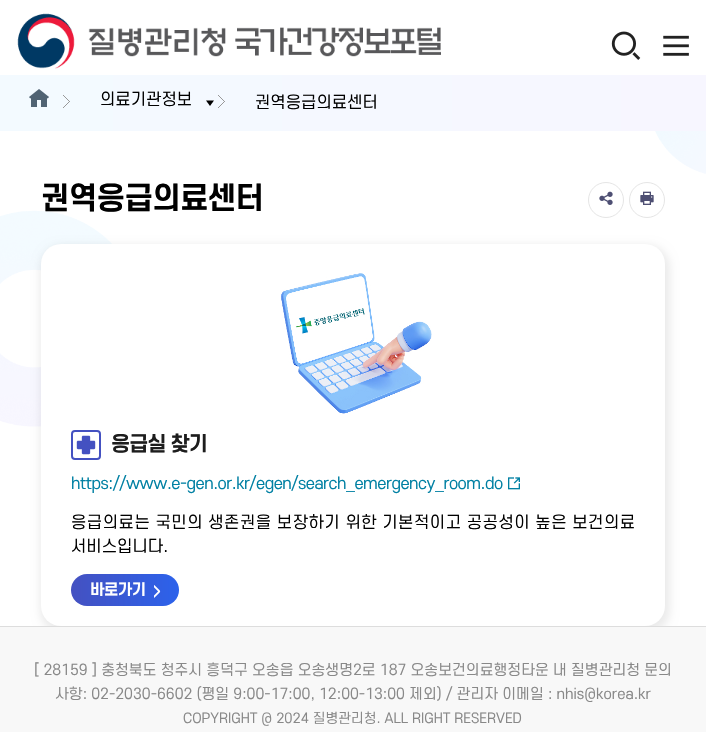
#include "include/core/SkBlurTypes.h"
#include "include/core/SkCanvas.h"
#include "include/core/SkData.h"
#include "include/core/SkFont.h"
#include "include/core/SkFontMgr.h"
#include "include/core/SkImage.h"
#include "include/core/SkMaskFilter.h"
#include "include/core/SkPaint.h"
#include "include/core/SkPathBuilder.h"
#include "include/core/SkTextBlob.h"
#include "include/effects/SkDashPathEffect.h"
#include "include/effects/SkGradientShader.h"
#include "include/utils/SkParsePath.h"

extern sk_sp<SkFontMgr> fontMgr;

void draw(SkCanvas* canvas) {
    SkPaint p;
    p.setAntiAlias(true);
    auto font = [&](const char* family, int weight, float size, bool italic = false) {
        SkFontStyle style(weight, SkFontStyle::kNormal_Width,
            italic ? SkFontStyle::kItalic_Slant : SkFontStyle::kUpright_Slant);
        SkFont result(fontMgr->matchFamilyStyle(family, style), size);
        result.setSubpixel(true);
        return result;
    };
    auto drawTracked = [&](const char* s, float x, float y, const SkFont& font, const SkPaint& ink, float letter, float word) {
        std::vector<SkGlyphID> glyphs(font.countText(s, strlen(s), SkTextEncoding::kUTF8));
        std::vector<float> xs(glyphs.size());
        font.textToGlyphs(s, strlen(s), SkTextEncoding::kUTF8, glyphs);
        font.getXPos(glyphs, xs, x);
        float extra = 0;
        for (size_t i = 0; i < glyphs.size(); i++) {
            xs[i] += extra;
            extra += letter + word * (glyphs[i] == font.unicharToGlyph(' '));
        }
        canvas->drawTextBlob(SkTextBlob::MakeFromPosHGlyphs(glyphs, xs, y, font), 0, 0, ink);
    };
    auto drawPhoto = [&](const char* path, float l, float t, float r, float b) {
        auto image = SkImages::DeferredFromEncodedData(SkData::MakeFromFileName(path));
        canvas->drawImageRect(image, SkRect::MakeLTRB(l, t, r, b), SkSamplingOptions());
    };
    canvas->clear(0xFFFFFFFF);
    drawPhoto("media/1.png", 17, 13, 441, 69);
    drawPhoto("media/2.png", 611, 31, 641, 60);
    drawPhoto("media/3.png", 663, 35, 689, 56);
    drawPhoto("media/4.png", 0, 131, 706, 427);
    {
        const SkColor colors[] = {0xFFF3FAFF, 0xFFF7F6FF};
        const float stops[] = {0.04f, 1};
        const SkPoint ends[] = {{0, 103}, {706, 103}};
        p.setShader(SkGradientShader::MakeLinear(ends, colors, stops, 2, SkTileMode::kClamp));
        p.setAlpha(255);
    }
    canvas->drawRect(SkRect::MakeLTRB(0, 75, 706, 131), p);
    drawPhoto("media/5.png", 29, 89, 49, 107);
    drawPhoto("media/6.png", 63, 95, 70, 108);
    auto font1 = font("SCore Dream", 400, 16);
    p.setShader(nullptr);
    p.setColor(0xFF000000);
    canvas->drawString("의료기관정보", 100, 105, font1, p);
    canvas->drawPath(SkPathBuilder().moveTo(214, 100.5f).lineTo(210, 106).lineTo(206, 100.5f).close().detach(), p);
    drawPhoto("media/7.png", 218, 95, 225, 108);
    canvas->drawString("권역응급의료센터", 255, 108, font1, p);
    auto font2 = font("SCore Dream", 700, 30);
    drawTracked("권역응급의료센터", 41, 209, font2, p, -1, 0);
    p.setStyle(SkPaint::kStroke_Style);
    p.setStrokeWidth(1);
    p.setColor(0xFFE5E5E5);
    canvas->drawCircle(606, 200, 17.5f, p);
    drawPhoto("media/8.png", 599, 191, 613, 205);
    canvas->drawCircle(647, 200, 17.5f, p);
    drawPhoto("media/9.png", 640, 191, 654, 205);
    p.setStyle(SkPaint::kFill_Style);
    p.setColor(0xFFF8F8F8);
    canvas->drawRect(SkRect::MakeLTRB(0, 627, 706, 732), p);
    p.setColor(0xFFDDDDDD);
    canvas->drawRect(SkRect::MakeLTRB(0, 626, 706, 627), p);
    canvas->save();
    canvas->clipRect(SkRect::MakeLTRB(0, 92, 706, 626));
    p.setColor(0x14000000);
    p.setMaskFilter(SkMaskFilter::MakeBlur(kNormal_SkBlurStyle, 4));
    canvas->drawRoundRect(SkRect::MakeLTRB(40, 245, 670, 633), 23, 23, p);
    p.setMaskFilter(nullptr);
    canvas->restore();
    p.setColor(0xFFFFFFFF);
    canvas->drawRoundRect(SkRect::MakeLTRB(41, 244, 665, 626), 20, 20, p);
    drawPhoto("media/10.png", 281, 273, 432, 414);
    drawPhoto("media/11.png", 71, 430, 101, 460);
    auto font3 = font("SCore Dream", 700, 20);
    p.setColor(0xFF1D1D1D);
    drawTracked("응급실 찾기", 111, 451, font3, p, -1, 0);
    p.setColor(0xFF0080A3);
    drawTracked("https://www.e-gen.or.kr/egen/search_emergency_room.do", 71, 489, font1, p, -0.5f, 0);
    drawPhoto("media/12.png", 508, 477, 520, 490);
    p.setColor(0xFF000000);
    drawTracked("응급의료는 국민의 생존권을 보장하기 위한 기본적이고 공공성이 높은 보건의료", 71, 528, font1, p, 0.5f, 0);
    canvas->drawString("서비스입니다.", 71, 552, font1, p);
    {
        const SkColor colors[] = {0xFF4451C1, 0xFF2C62EB};
        const float stops[] = {0, 1};
        const SkPoint ends[] = {{71, 590}, {179, 590}};
        p.setShader(SkGradientShader::MakeLinear(ends, colors, stops, 2, SkTileMode::kClamp));
        p.setAlpha(255);
    }
    canvas->drawRoundRect(SkRect::MakeLTRB(71, 574, 179, 606), 16, 16, p);
    auto font4 = font("SCore Dream", 700, 15);
    p.setShader(nullptr);
    p.setColor(0xFFFFFFFF);
    drawTracked("바로가기", 90, 595, font4, p, -0.5f, 0);
    drawPhoto("media/13.png", 154, 585, 161, 598);
    auto font5 = font("SCore Dream", 400, 14.4f);
    p.setColor(0xFF888888);
    canvas->drawString("[ 28159 ] 충청북도 청주시 흥덕구 오송읍 오송생명2로 187 오송보건의료행정타운 내 질병관리청 문의", 34, 675, font5, p);
    canvas->drawString("사항: 02-2030-6602 (평일 9:00-17:00, 12:00-13:00 제외) / 관리자 이메일 : nhis@korea.kr", 55, 699, font5, p);
    auto font6 = font("SCore Dream", 400, 13.3f);
    canvas->drawString("COPYRIGHT @ 2024 질병관리청. ALL RIGHT RESERVED", 183, 723, font6, p);
}
